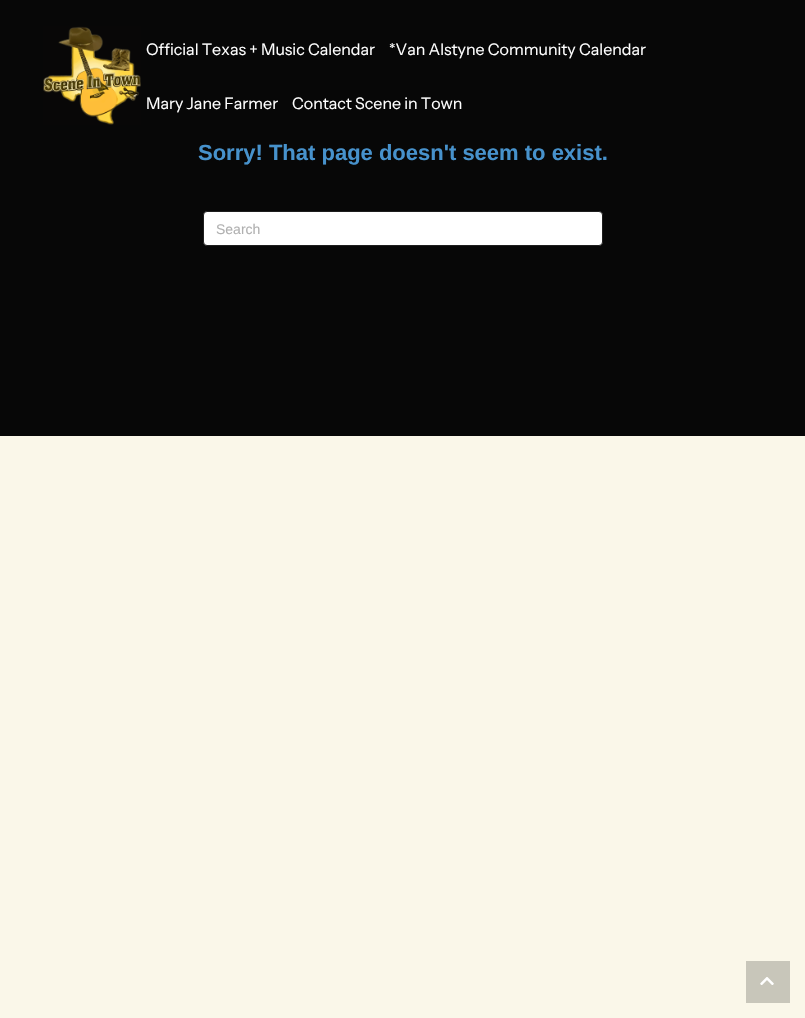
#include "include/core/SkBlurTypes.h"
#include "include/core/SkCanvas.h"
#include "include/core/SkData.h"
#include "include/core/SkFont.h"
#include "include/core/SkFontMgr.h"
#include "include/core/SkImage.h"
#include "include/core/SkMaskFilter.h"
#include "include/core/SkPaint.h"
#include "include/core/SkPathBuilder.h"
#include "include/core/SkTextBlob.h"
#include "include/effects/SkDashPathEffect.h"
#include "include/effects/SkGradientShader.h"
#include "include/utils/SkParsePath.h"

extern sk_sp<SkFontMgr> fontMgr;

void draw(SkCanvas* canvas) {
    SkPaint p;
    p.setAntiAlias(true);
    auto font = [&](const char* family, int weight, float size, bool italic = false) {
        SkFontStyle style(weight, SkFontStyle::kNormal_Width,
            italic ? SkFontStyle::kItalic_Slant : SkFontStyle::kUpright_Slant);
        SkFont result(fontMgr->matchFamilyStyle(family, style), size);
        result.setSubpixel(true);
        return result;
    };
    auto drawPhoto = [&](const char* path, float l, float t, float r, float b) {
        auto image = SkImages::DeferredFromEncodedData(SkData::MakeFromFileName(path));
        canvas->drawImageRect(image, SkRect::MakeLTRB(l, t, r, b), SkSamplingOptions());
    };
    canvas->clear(0xFFFAF7E9);
    p.setColor(0xFF070707);
    canvas->drawRect(SkRect::MakeLTRB(0, 0, 805, 436), p);
    drawPhoto("media/1.png", 43, 26, 141, 125);
    auto font1 = font("Instrument Sans", 400, 16);
    p.setColor(0xFFFFFFFF);
    {
        const struct { const char* s; float x, y; } items[] = {
            {"Official Texas + Music Calendar", 146, 55},
            {"*Van Alstyne Community Calendar", 389, 55},
            {"Mary Jane Farmer", 146, 109},
            {"Contact Scene in Town", 292, 109},
        };
        for (auto [s, x, y] : items) {
            canvas->drawString(s, x, y, font1, p);
        }
    }
    auto font2 = font("Liberation Sans", 700, 22);
    p.setColor(0xFF4792CC);
    canvas->drawString("Sorry! That page doesn't seem to exist.", 198, 160, font2, p);
    p.setColor(0xFFFFFFFF);
    canvas->drawRoundRect(SkRect::MakeLTRB(203.5f, 211.5f, 602.5f, 245.5f), 3.5f, 3.5f, p);
    p.setStyle(SkPaint::kStroke_Style);
    p.setStrokeWidth(1);
    p.setColor(0xFF1E1E1E);
    canvas->drawRoundRect(SkRect::MakeLTRB(203.5f, 211.5f, 602.5f, 245.5f), 3.5f, 3.5f, p);
    auto font3 = font("Liberation Sans", 400, 14);
    p.setStyle(SkPaint::kFill_Style);
    p.setColor(0xFFB0B0B0);
    canvas->drawString("Search", 216, 234, font3, p);
    p.setColor(0xFFC8C6BA);
    canvas->drawRect(SkRect::MakeLTRB(746, 961, 790, 1003), p);
    drawPhoto("media/2.png", 760, 977, 774, 985);
}
